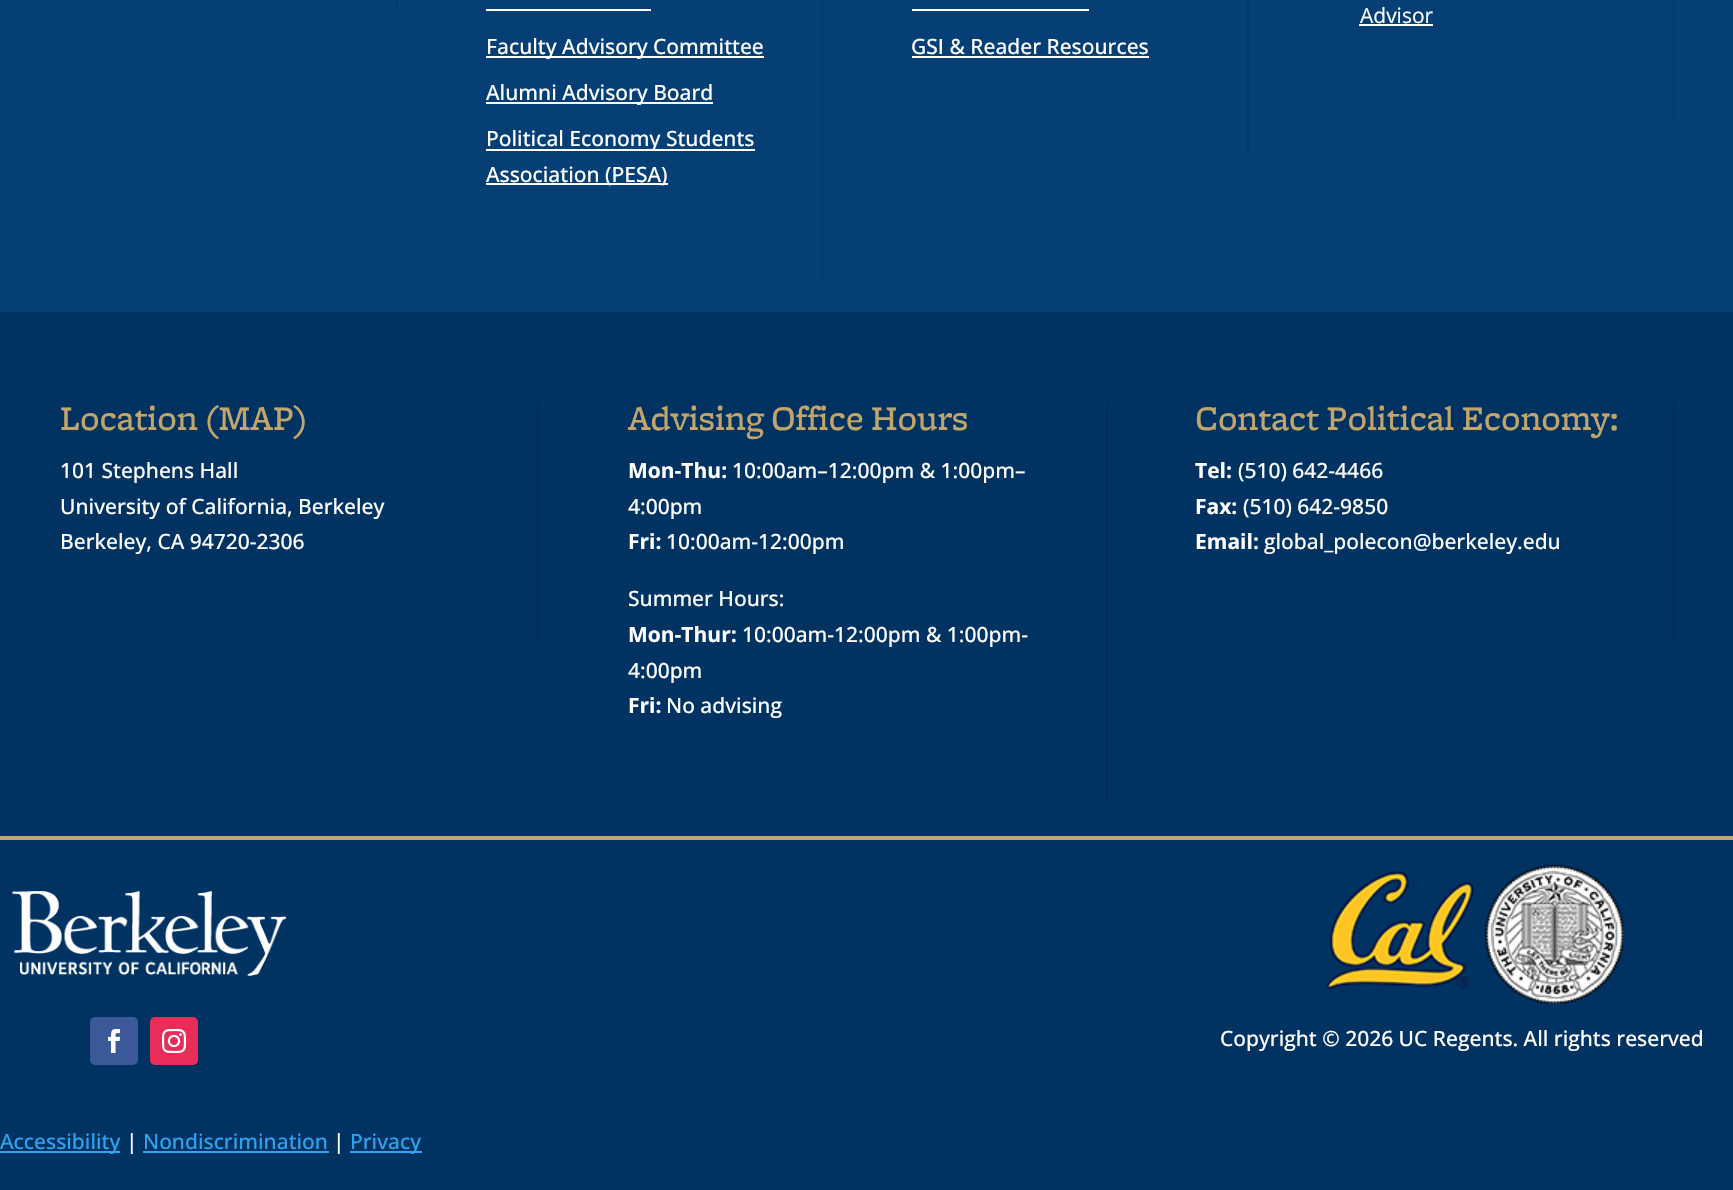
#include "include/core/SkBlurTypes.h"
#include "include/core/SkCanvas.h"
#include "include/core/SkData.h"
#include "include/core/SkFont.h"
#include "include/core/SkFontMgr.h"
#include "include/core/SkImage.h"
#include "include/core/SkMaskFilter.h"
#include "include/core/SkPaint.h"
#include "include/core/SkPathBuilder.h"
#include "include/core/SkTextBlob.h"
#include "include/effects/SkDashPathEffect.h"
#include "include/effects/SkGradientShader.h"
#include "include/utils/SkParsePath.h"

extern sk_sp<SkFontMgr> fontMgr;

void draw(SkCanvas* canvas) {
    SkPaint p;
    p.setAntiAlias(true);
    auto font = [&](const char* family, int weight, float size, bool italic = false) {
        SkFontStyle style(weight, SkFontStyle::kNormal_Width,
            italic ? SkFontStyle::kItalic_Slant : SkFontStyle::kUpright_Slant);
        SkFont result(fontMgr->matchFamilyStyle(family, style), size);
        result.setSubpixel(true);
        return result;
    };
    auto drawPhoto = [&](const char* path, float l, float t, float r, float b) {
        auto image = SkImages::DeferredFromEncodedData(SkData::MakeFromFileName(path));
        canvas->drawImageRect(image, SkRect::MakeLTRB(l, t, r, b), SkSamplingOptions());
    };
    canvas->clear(0xFF063F75);
    p.setColor(0xFF053969);
    canvas->drawRect(SkRect::MakeLTRB(396, 0, 398, 12), p);
    canvas->drawRect(SkRect::MakeLTRB(1673, 0, 1675, 120), p);
    auto font1 = font("Open Sans", 400, 21);
    p.setColor(0xFFFFFFFF);
    canvas->drawString("Advisor", 1360, 23, font1, p);
    {
        const struct { float l, t, r, b; SkColor color; } items[] = {
            {1359, 24, 1433, 26, 0xFFFFFFFF},
            {821, 0, 823, 279, 0xFF053969},
            {486, 9, 651, 11, 0xFFFFFFFF},
            {486, 56, 764, 58, 0xFFFFFFFF},
        };
        for (auto [l, t, r, b, color] : items) {
            p.setColor(color);
            canvas->drawRect(SkRect::MakeLTRB(l, t, r, b), p);
        }
    }
    auto font2 = font("Open Sans", 500, 21);
    canvas->drawString("Faculty Advisory Committee", 486, 54, font2, p);
    canvas->drawRect(SkRect::MakeLTRB(486, 102, 713, 104), p);
    canvas->drawString("Alumni Advisory Board", 486, 100, font2, p);
    canvas->drawRect(SkRect::MakeLTRB(486, 149, 755, 151), p);
    canvas->drawString("Political Economy Students", 486, 146, font2, p);
    canvas->drawRect(SkRect::MakeLTRB(486, 183, 668, 185), p);
    canvas->drawString("Association (PESA)", 486, 182, font2, p);
    p.setColor(0xFF053969);
    canvas->drawRect(SkRect::MakeLTRB(1247, 0, 1249, 152), p);
    p.setColor(0xFFFFFFFF);
    canvas->drawRect(SkRect::MakeLTRB(912, 9, 1089, 11), p);
    canvas->drawString("GSI & Reader Resources", 911, 54, font2, p);
    {
        const struct { float l, t, r, b; SkColor color; } items[] = {
            {912, 56, 1149, 58, 0xFFFFFFFF},
            {0, 312, 1733, 836, 0xFF003262},
            {0, 836, 1733, 840, 0xFFC2A56A},
            {537, 402, 539, 641, 0xFF002D58},
        };
        for (auto [l, t, r, b, color] : items) {
            p.setColor(color);
            canvas->drawRect(SkRect::MakeLTRB(l, t, r, b), p);
        }
    }
    auto font3 = font("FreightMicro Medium", 500, 36);
    p.setColor(0xFFC2A56A);
    canvas->drawString("Location (MAP)", 60, 430, font3, p);
    p.setColor(0xFFFFFFFF);
    {
        const struct { const char* s; float x, y; } items[] = {
            {"101 Stephens Hall", 60, 478},
            {"University of California, Berkeley", 60, 514},
            {"Berkeley, CA 94720-2306", 60, 549},
        };
        for (auto [s, x, y] : items) {
            canvas->drawString(s, x, y, font2, p);
        }
    }
    p.setColor(0xFF002D58);
    canvas->drawRect(SkRect::MakeLTRB(1106, 402, 1108, 804), p);
    p.setColor(0xFFC2A56A);
    canvas->drawString("Advising Office Hours", 628, 430, font3, p);
    auto font4 = font("Open Sans", 700, 21);
    p.setColor(0xFFFFFFFF);
    canvas->drawString("Mon-Thu:", 628, 478, font4, p);
    canvas->drawString("10:00am–12:00pm & 1:00pm–", 732, 478, font2, p);
    canvas->drawString("4:00pm", 628, 514, font2, p);
    canvas->drawString("Fri:", 628, 549, font4, p);
    canvas->drawString("10:00am-12:00pm", 666, 549, font2, p);
    canvas->drawString("Summer Hours:", 628, 606, font2, p);
    canvas->drawString("Mon-Thur:", 628, 642, font4, p);
    canvas->drawString("10:00am-12:00pm & 1:00pm-", 742, 642, font2, p);
    canvas->drawString("4:00pm", 628, 678, font2, p);
    canvas->drawString("Fri:", 628, 713, font4, p);
    canvas->drawString("No advising", 666, 713, font2, p);
    p.setColor(0xFF002D58);
    canvas->drawRect(SkRect::MakeLTRB(1673, 402, 1675, 641), p);
    p.setColor(0xFFC2A56A);
    canvas->drawString("Contact Political Economy:", 1195, 430, font3, p);
    p.setColor(0xFFFFFFFF);
    canvas->drawString("Tel:", 1195, 478, font4, p);
    canvas->drawString("(510) 642-4466", 1238, 478, font2, p);
    canvas->drawString("Fax:", 1195, 514, font4, p);
    canvas->drawString("(510) 642-9850", 1243, 514, font2, p);
    canvas->drawString("Email:", 1195, 549, font4, p);
    canvas->drawString("global_polecon@berkeley.edu", 1264, 549, font2, p);
    p.setColor(0xFF003262);
    canvas->drawRect(SkRect::MakeLTRB(0, 840, 1733, 1190), p);
    drawPhoto("media/1.png", 1326, 871, 1474, 990);
    drawPhoto("media/2.png", 1484, 864, 1624, 1004);
    p.setColor(0xFFFFFFFF);
    canvas->drawString("Copyright © 2026 UC Regents. All rights reserved", 1220, 1046, font2, p);
    drawPhoto("media/3.png", 12, 891, 287, 976);
    p.setColor(0xFF3B5998);
    canvas->drawRoundRect(SkRect::MakeLTRB(90, 1017, 138, 1065), 5, 5, p);
    drawPhoto("media/4.png", 108, 1029, 121, 1053);
    p.setColor(0xFFEA2C59);
    canvas->drawRoundRect(SkRect::MakeLTRB(150, 1017, 198, 1065), 5, 5, p);
    drawPhoto("media/5.png", 162, 1029, 186, 1053);
    p.setColor(0xFF2EA3F2);
    canvas->drawRect(SkRect::MakeLTRB(0, 1151, 120, 1153), p);
    canvas->drawString("Accessibility", 0, 1149, font2, p);
    p.setColor(0xFFFFFFFF);
    canvas->drawString("|", 126, 1149, font2, p);
    p.setColor(0xFF2EA3F2);
    canvas->drawString("Nondiscrimination", 143, 1149, font2, p);
    canvas->drawRect(SkRect::MakeLTRB(143, 1151, 329, 1153), p);
    p.setColor(0xFFFFFFFF);
    canvas->drawString("|", 333, 1149, font2, p);
    p.setColor(0xFF2EA3F2);
    canvas->drawRect(SkRect::MakeLTRB(350, 1151, 422, 1153), p);
    canvas->drawString("Privacy", 350, 1149, font2, p);
}
